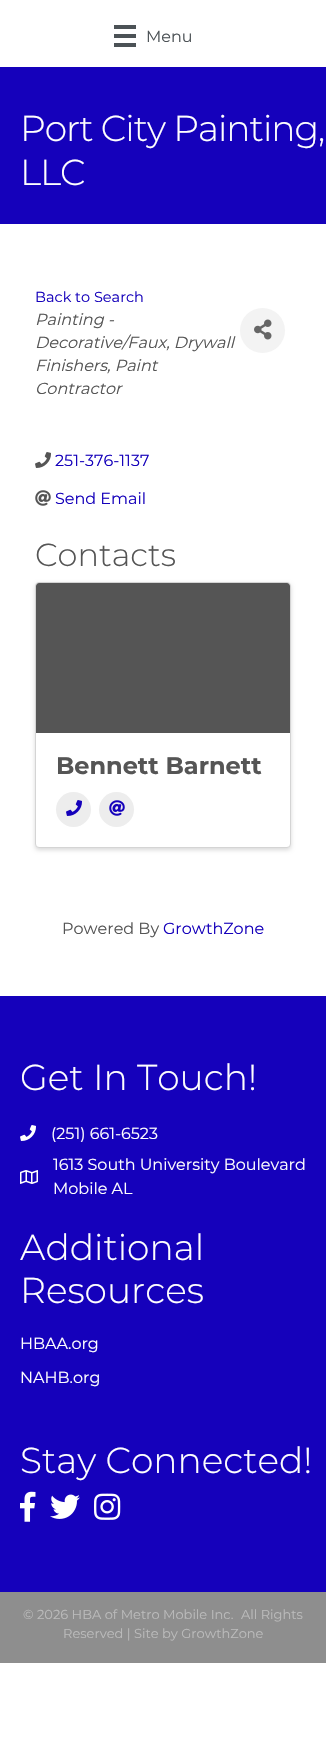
#include "include/core/SkBlurTypes.h"
#include "include/core/SkCanvas.h"
#include "include/core/SkData.h"
#include "include/core/SkFont.h"
#include "include/core/SkFontMgr.h"
#include "include/core/SkImage.h"
#include "include/core/SkMaskFilter.h"
#include "include/core/SkPaint.h"
#include "include/core/SkPathBuilder.h"
#include "include/core/SkTextBlob.h"
#include "include/effects/SkDashPathEffect.h"
#include "include/effects/SkGradientShader.h"
#include "include/utils/SkParsePath.h"

extern sk_sp<SkFontMgr> fontMgr;

void draw(SkCanvas* canvas) {
    SkPaint p;
    p.setAntiAlias(true);
    auto font = [&](const char* family, int weight, float size, bool italic = false) {
        SkFontStyle style(weight, SkFontStyle::kNormal_Width,
            italic ? SkFontStyle::kItalic_Slant : SkFontStyle::kUpright_Slant);
        SkFont result(fontMgr->matchFamilyStyle(family, style), size);
        result.setSubpixel(true);
        return result;
    };
    auto drawTracked = [&](const char* s, float x, float y, const SkFont& font, const SkPaint& ink, float letter, float word) {
        std::vector<SkGlyphID> glyphs(font.countText(s, strlen(s), SkTextEncoding::kUTF8));
        std::vector<float> xs(glyphs.size());
        font.textToGlyphs(s, strlen(s), SkTextEncoding::kUTF8, glyphs);
        font.getXPos(glyphs, xs, x);
        float extra = 0;
        for (size_t i = 0; i < glyphs.size(); i++) {
            xs[i] += extra;
            extra += letter + word * (glyphs[i] == font.unicharToGlyph(' '));
        }
        canvas->drawTextBlob(SkTextBlob::MakeFromPosHGlyphs(glyphs, xs, y, font), 0, 0, ink);
    };
    auto drawPhoto = [&](const char* path, float l, float t, float r, float b) {
        auto image = SkImages::DeferredFromEncodedData(SkData::MakeFromFileName(path));
        canvas->drawImageRect(image, SkRect::MakeLTRB(l, t, r, b), SkSamplingOptions());
    };
    canvas->clear(0xFFFFFFFF);
    {
        const struct { float l, t, r, b; SkColor color; } items[] = {
            {114, 25, 136, 29, 0xFF4C5256},
            {114, 34, 136, 38, 0xFF4C5256},
            {114, 43, 136, 47, 0xFF4C5256},
        };
        for (auto [l, t, r, b, color] : items) {
            p.setColor(color);
            canvas->drawRect(SkRect::MakeLTRB(l, t, r, b), p);
        }
    }
    auto font1 = font("Montserrat", 400, 16);
    canvas->drawString("Menu", 146, 42, font1, p);
    p.setColor(0xFF1501BB);
    canvas->drawRect(SkRect::MakeLTRB(0, 67, 326, 224), p);
    auto font2 = font("Montserrat", 300, 36);
    p.setColor(0xFFFFFFFF);
    drawTracked("Port City Painting,", 20, 141, font2, p, -1, 0);
    drawTracked("LLC", 20, 185, font2, p, -1, 0);
    auto font3 = font("Montserrat", 400, 14.5f);
    p.setColor(0xFF1501BB);
    canvas->drawString("Back to Search", 35, 302, font3, p);
    auto font4 = font("Montserrat", 400, 16, true);
    p.setColor(0xFF555555);
    {
        const struct { const char* s; float x, y; } items[] = {
            {"Painting -", 35, 325},
            {"Decorative/Faux, Drywall", 35, 348},
            {"Finishers, Paint", 35, 371},
            {"Contractor", 35, 394},
        };
        for (auto [s, x, y] : items) {
            canvas->drawString(s, x, y, font4, p);
        }
    }
    p.setColor(0xFFF3F3F3);
    canvas->drawCircle(262.5f, 330.5f, 22.5f, p);
    drawPhoto("media/1.png", 254, 319, 272, 340);
    drawPhoto("media/2.png", 35, 452, 51, 468);
    p.setColor(0xFF1501BB);
    canvas->drawString("251-376-1137", 55, 466, font1, p);
    drawPhoto("media/3.png", 35, 490, 51, 506);
    canvas->drawString("Send Email", 55, 504, font1, p);
    auto font5 = font("Montserrat", 300, 32);
    p.setColor(0xFF555555);
    canvas->drawString("Contacts", 35, 566, font5, p);
    p.setColor(0x26000000);
    p.setMaskFilter(SkMaskFilter::MakeBlur(kNormal_SkBlurStyle, 2));
    canvas->drawRoundRect(SkRect::MakeLTRB(35, 584, 291, 850), 4, 4, p);
    p.setMaskFilter(nullptr);
    p.setColor(0xFFFFFFFF);
    canvas->drawRoundRect(SkRect::MakeLTRB(35.5f, 582.5f, 290.5f, 847.5f), 3.5f, 3.5f, p);
    p.setStyle(SkPaint::kStroke_Style);
    p.setStrokeWidth(1);
    p.setColor(0xFFD4D4D4);
    canvas->drawRoundRect(SkRect::MakeLTRB(35.5f, 582.5f, 290.5f, 847.5f), 3.5f, 3.5f, p);
    p.setStyle(SkPaint::kFill_Style);
    p.setColor(0xFF555555);
    canvas->drawPath(SkPathBuilder().moveTo(39, 583).lineTo(287, 583).cubicTo(288.5f, 583, 290, 584.5f, 290, 586).lineTo(290, 733).lineTo(36, 733).lineTo(36, 586).cubicTo(36, 584.5f, 37.5f, 583, 39, 583).close().detach(), p);
    auto font6 = font("Montserrat", 700, 24);
    canvas->drawString("Bennett Barnett", 56, 774, font6, p);
    p.setColor(0xFFEDEDED);
    canvas->drawCircle(73.5f, 809.5f, 17.5f, p);
    drawPhoto("media/4.png", 66, 800, 82, 816);
    canvas->drawCircle(116.5f, 809.5f, 17.5f, p);
    drawPhoto("media/5.png", 109, 800, 125, 816);
    p.setColor(0xFF555555);
    canvas->drawString("Powered By", 62, 934, font1, p);
    p.setColor(0xFF1501BB);
    canvas->drawString("GrowthZone", 163, 934, font1, p);
    canvas->drawRect(SkRect::MakeLTRB(0, 996, 326, 1592), p);
    p.setColor(0xFFFFFFFF);
    canvas->drawString("Get In Touch!", 20, 1090, font2, p);
    drawPhoto("media/6.png", 20, 1125, 36, 1141);
    canvas->drawString("(251) 661-6523", 51, 1139, font1, p);
    drawPhoto("media/7.png", 20, 1170, 38, 1184);
    canvas->drawString("1613 South University Boulevard", 53, 1170, font1, p);
    canvas->drawString("Mobile AL", 53, 1194, font1, p);
    canvas->drawString("Additional", 20, 1260, font2, p);
    canvas->drawString("Resources", 20, 1303, font2, p);
    canvas->drawString("HBAA.org", 20, 1349, font1, p);
    canvas->drawString("NAHB.org", 20, 1383, font1, p);
    canvas->drawString("Stay Connected!", 20, 1473, font2, p);
    drawPhoto("media/8.png", 20, 1491, 36, 1522);
    drawPhoto("media/9.png", 50, 1494, 80, 1519);
    drawPhoto("media/10.png", 94, 1493, 121, 1520);
    p.setColor(0xFF8E8E8E);
    canvas->drawRect(SkRect::MakeLTRB(0, 1592, 326, 1663), p);
    auto font7 = font("Montserrat", 400, 13);
    p.setColor(0xFFBBBBBB);
    {
        const struct { const char* s; float x, y; } items[] = {
            {"© 2026 HBA of Metro Mobile Inc.", 23, 1619},
            {"All Rights", 241, 1619},
            {"Reserved | Site by GrowthZone", 63, 1638},
        };
        for (auto [s, x, y] : items) {
            canvas->drawString(s, x, y, font7, p);
        }
    }
}
